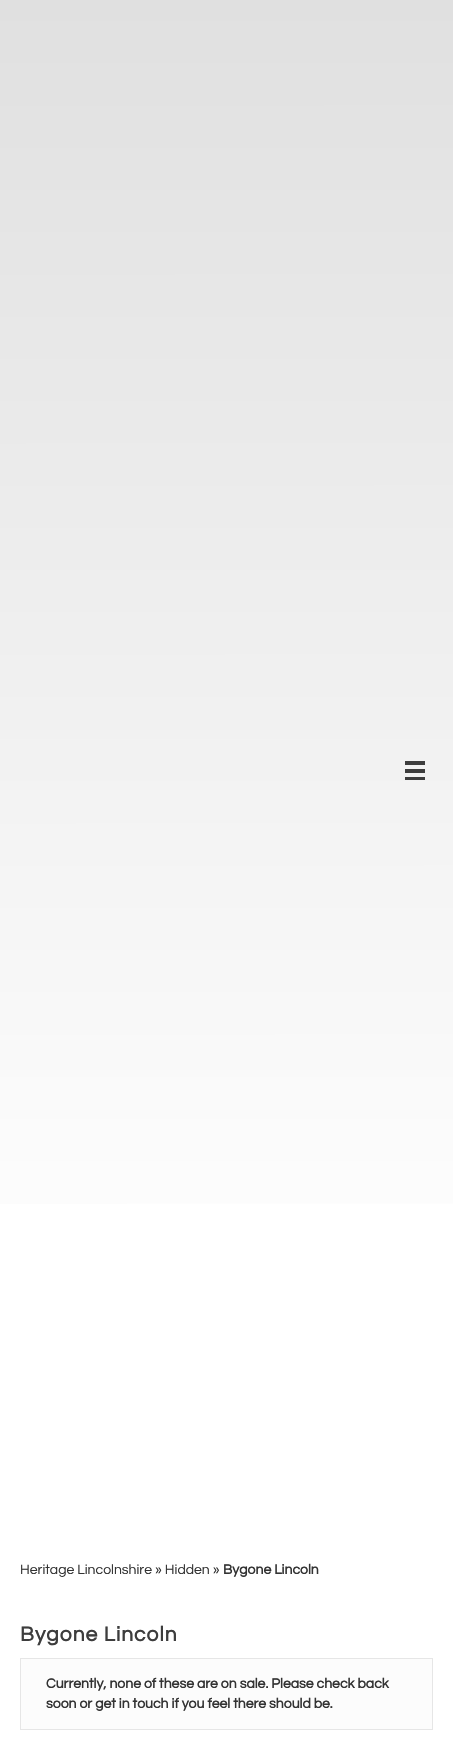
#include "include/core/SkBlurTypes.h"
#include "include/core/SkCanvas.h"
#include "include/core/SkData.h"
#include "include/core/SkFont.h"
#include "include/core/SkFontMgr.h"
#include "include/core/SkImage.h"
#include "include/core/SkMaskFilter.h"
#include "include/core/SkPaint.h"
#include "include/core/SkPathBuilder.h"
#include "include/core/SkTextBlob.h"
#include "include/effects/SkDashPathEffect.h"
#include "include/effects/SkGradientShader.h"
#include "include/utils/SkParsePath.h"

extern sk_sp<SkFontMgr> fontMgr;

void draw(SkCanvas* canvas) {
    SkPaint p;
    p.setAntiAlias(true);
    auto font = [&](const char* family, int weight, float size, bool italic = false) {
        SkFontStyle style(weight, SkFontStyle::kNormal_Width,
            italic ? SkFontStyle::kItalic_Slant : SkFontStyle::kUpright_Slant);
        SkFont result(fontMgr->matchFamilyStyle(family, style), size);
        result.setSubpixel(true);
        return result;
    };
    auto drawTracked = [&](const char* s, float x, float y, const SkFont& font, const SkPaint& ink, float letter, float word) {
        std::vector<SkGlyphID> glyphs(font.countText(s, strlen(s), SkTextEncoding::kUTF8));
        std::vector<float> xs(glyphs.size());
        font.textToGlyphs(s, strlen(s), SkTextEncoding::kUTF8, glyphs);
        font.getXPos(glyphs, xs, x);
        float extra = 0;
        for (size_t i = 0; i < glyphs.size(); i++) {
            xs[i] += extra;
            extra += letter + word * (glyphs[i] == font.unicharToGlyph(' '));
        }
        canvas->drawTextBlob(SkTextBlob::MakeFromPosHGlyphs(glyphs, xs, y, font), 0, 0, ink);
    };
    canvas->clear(0xFFFFFFFF);
    {
        const SkColor colors[] = {0xFFE0E0E0, 0xFFFFFFFF};
        const float stops[] = {0, 0.85f};
        const SkPoint ends[] = {{226, 0}, {227, 1540}};
        p.setShader(SkGradientShader::MakeLinear(ends, colors, stops, 2, SkTileMode::kClamp));
        p.setAlpha(255);
    }
    canvas->drawRect(SkRect::MakeLTRB(0, 0, 453, 1204), p);
    p.setShader(nullptr);
    {
        const struct { float l, t, r, b; SkColor color; } items[] = {
            {405, 761, 425, 765, 0xFF3D3D3D},
            {405, 769, 425, 773, 0xFF3D3D3D},
            {405, 777, 425, 780, 0xFF3D3D3D},
        };
        for (auto [l, t, r, b, color] : items) {
            p.setColor(color);
            canvas->drawRect(SkRect::MakeLTRB(l, t, r, b), p);
        }
    }
    auto font1 = font("Questrial", 400, 14);
    p.setColor(0xFF333333);
    canvas->drawString("Heritage Lincolnshire » Hidden »", 20, 1574, font1, p);
    auto font2 = font("Questrial", 700, 14);
    canvas->drawString("Bygone Lincoln", 223, 1574, font2, p);
    auto font3 = font("Questrial", 700, 21);
    p.setColor(0xFF3D3D3D);
    drawTracked("Bygone Lincoln", 20, 1641, font3, p, 1, 0);
    p.setColor(0xFFFCFCFC);
    canvas->drawRect(SkRect::MakeLTRB(20.5f, 1658.5f, 432.5f, 1729.5f), p);
    p.setStyle(SkPaint::kStroke_Style);
    p.setStrokeWidth(1);
    p.setColor(0xFFE6E6E6);
    canvas->drawRect(SkRect::MakeLTRB(20.5f, 1658.5f, 432.5f, 1729.5f), p);
    p.setStyle(SkPaint::kFill_Style);
    p.setColor(0xFF333333);
    canvas->drawString("Currently, none of these are on sale. Please check back", 46, 1688, font2, p);
    canvas->drawString("soon or get in touch if you feel there should be.", 46, 1708, font2, p);
}
